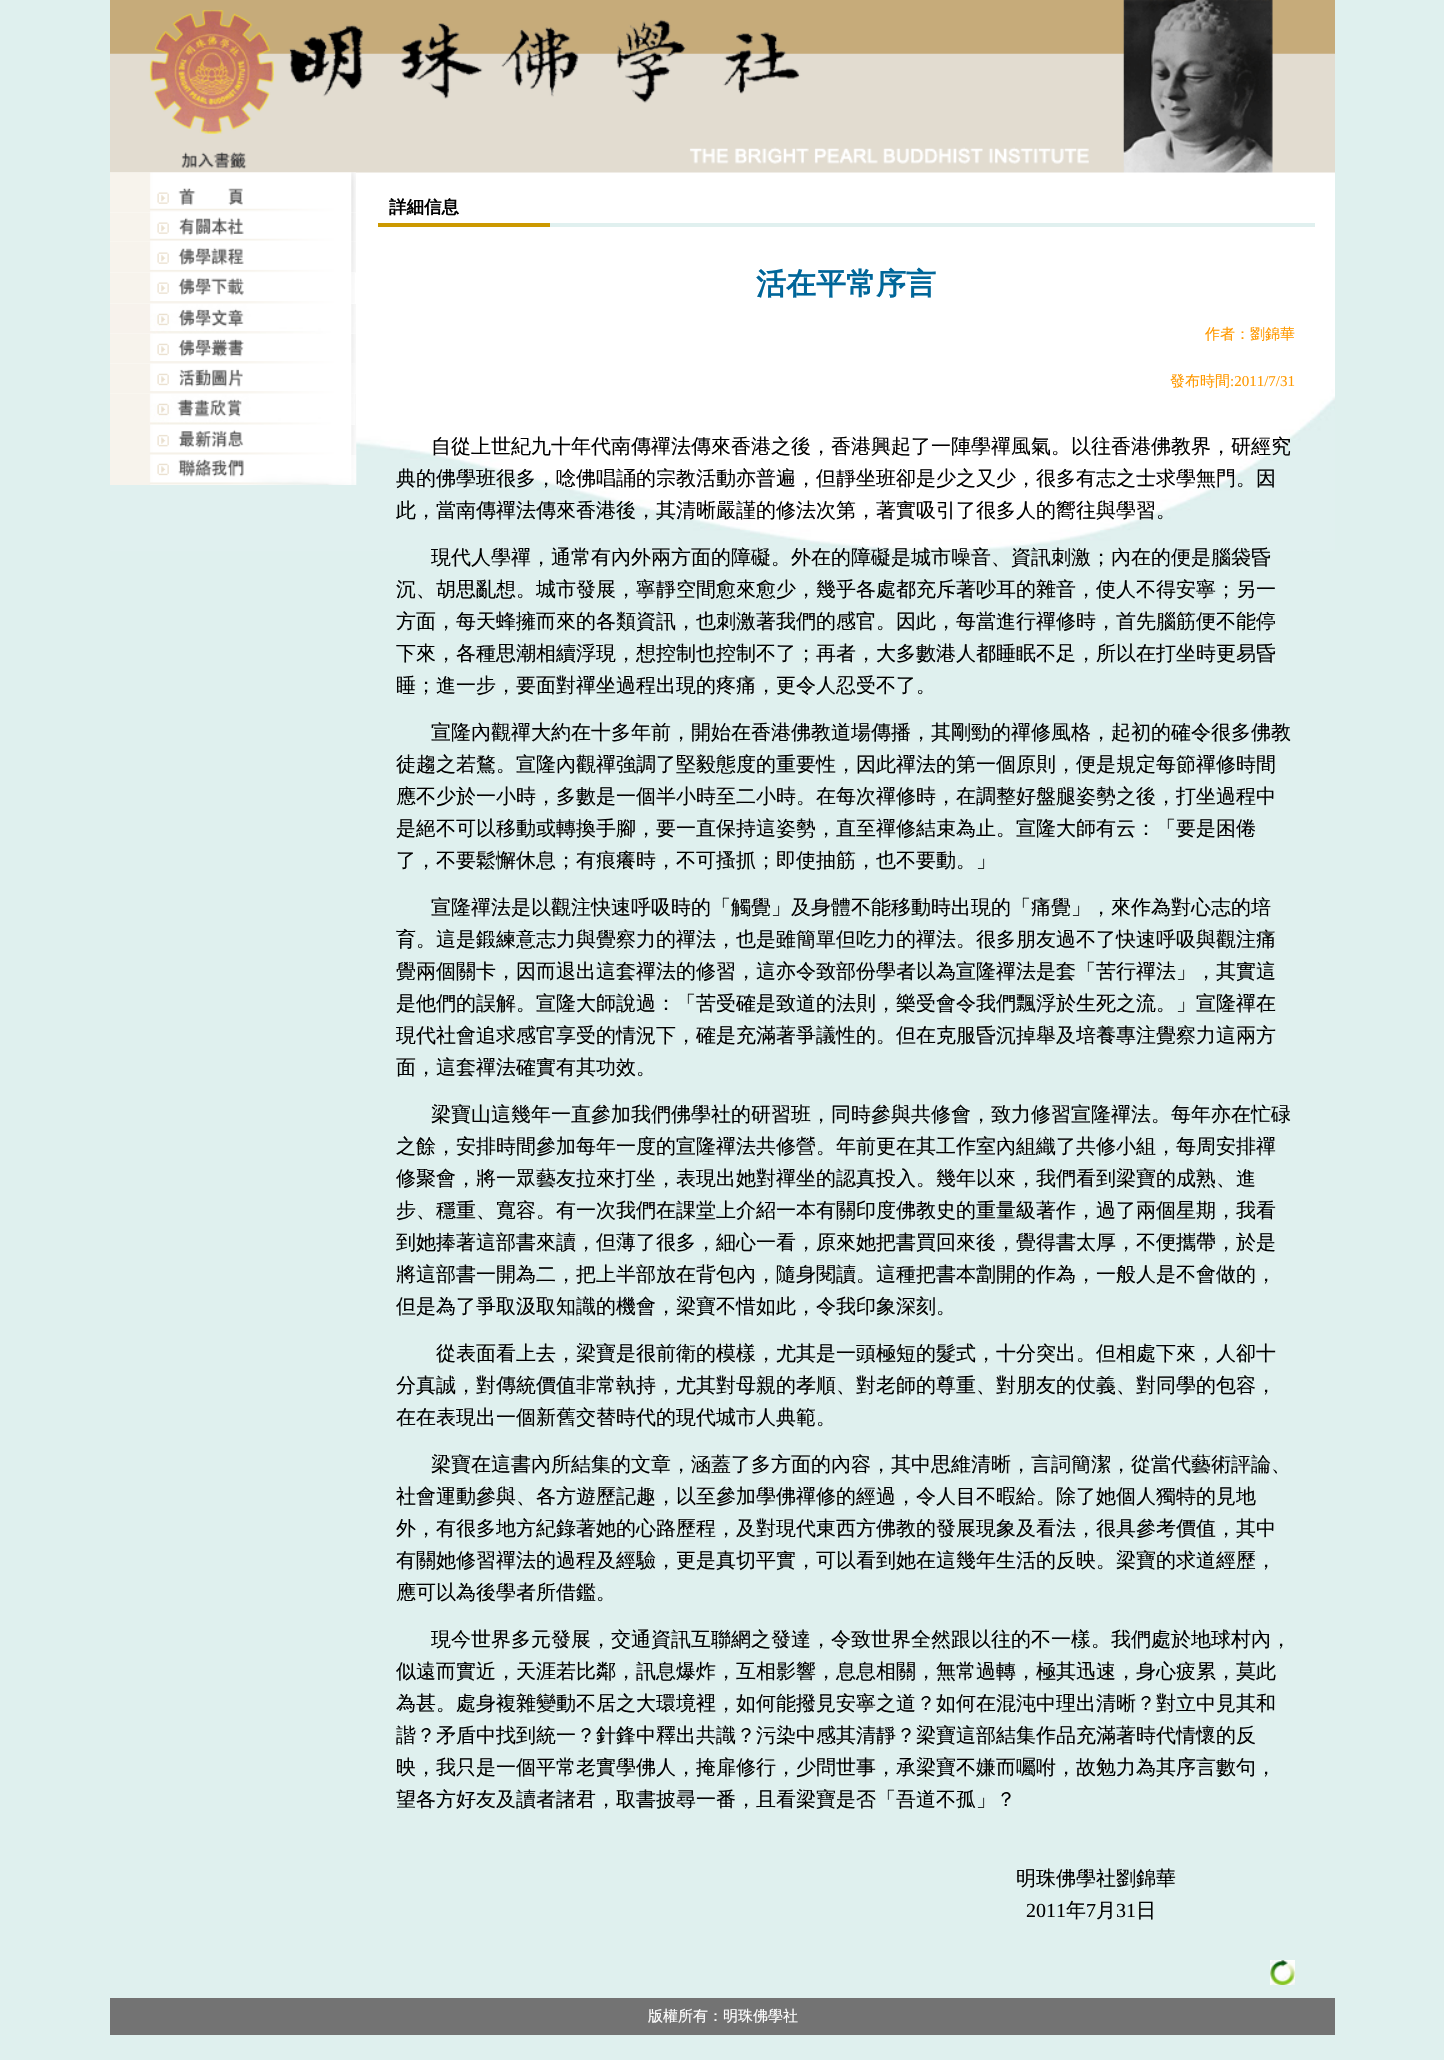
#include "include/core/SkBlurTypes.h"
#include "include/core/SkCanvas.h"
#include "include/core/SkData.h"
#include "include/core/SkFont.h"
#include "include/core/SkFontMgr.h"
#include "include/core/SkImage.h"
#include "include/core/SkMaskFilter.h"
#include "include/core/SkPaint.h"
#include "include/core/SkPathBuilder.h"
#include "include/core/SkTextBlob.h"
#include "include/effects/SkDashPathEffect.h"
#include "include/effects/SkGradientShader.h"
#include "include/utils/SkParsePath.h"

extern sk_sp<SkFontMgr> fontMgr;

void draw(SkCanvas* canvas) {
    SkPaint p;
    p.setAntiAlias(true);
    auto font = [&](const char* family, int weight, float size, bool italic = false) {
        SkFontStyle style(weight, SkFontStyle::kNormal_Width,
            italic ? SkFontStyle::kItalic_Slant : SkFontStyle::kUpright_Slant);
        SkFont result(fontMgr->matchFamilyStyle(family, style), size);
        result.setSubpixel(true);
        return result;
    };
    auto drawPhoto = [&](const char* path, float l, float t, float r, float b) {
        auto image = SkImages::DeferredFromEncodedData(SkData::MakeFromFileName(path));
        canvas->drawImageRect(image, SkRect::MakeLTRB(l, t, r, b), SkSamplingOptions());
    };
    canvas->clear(0xFFDFF0EE);
    drawPhoto("media/1.png", 110, 172, 1335, 551);
    drawPhoto("media/2.png", 110, 0, 1335, 173);
    drawPhoto("media/3.png", 110, 172, 356, 213);
    drawPhoto("media/4.png", 110, 212, 356, 242);
    drawPhoto("media/5.png", 110, 241, 356, 273);
    drawPhoto("media/6.png", 110, 272, 355, 304);
    drawPhoto("media/7.png", 110, 304, 356, 334);
    drawPhoto("media/8.png", 110, 334, 356, 364);
    drawPhoto("media/10.png", 110, 393, 356, 425);
    drawPhoto("media/9.png", 110, 364, 356, 394);
    drawPhoto("media/11.png", 150, 394, 355, 425);
    drawPhoto("media/12.png", 110, 425, 357, 455);
    drawPhoto("media/13.png", 110, 455, 357, 485);
    p.setColor(0xFFCC9900);
    canvas->drawRect(SkRect::MakeLTRB(378, 223, 550, 227), p);
    auto font1 = font("WenQuanYi Zen Hei", 700, 17.5f);
    p.setColor(0xFF000000);
    canvas->drawString("詳細信息", 389, 213, font1, p);
    p.setColor(0xFFE0F0EF);
    canvas->drawRect(SkRect::MakeLTRB(550, 223, 1315, 227), p);
    auto font2 = font("WenQuanYi Zen Hei", 700, 30);
    p.setColor(0xFF006699);
    canvas->drawString("活在平常序言", 756, 294, font2, p);
    auto font3 = font("WenQuanYi Zen Hei", 500, 15);
    p.setColor(0xFFFF9900);
    canvas->drawString("作者：劉錦華", 1205, 339, font3, p);
    canvas->drawString("發布時間", 1170, 386, font3, p);
    auto font4 = font("Liberation Serif", 400, 15);
    canvas->drawString(":2011/7/31", 1230, 386, font4, p);
    auto font5 = font("WenQuanYi Zen Hei", 500, 20);
    p.setColor(0xFF000000);
    {
        const struct { const char* s; float x, y; } items[] = {
            {"自從上世紀九十年代南傳禪法傳來香港之後，香港興起了一陣學禪風氣。以往香港佛教界，研經究", 431, 453},
            {"典的佛學班很多，唸佛唱誦的宗教活動亦普遍，但靜坐班卻是少之又少，很多有志之士求學無門。因", 396, 485},
            {"此，當南傳禪法傳來香港後，其清晰嚴謹的修法次第，著實吸引了很多人的嚮往與學習。", 396, 517},
            {"現代人學禪，通常有內外兩方面的障礙。外在的障礙是城市噪音、資訊刺激；內在的便是腦袋昏", 431, 564},
            {"沉、胡思亂想。城市發展，寧靜空間愈來愈少，幾乎各處都充斥著吵耳的雜音，使人不得安寧；另一", 396, 596},
            {"方面，每天蜂擁而來的各類資訊，也刺激著我們的感官。因此，每當進行禪修時，首先腦筋便不能停", 396, 628},
            {"下來，各種思潮相續浮現，想控制也控制不了；再者，大多數港人都睡眠不足，所以在打坐時更易昏", 396, 660},
            {"睡；進一步，要面對禪坐過程出現的疼痛，更令人忍受不了。", 396, 692},
            {"宣隆內觀禪大約在十多年前，開始在香港佛教道場傳播，其剛勁的禪修風格，起初的確令很多佛教", 431, 739},
            {"徒趨之若鶩。宣隆內觀禪強調了堅毅態度的重要性，因此禪法的第一個原則，便是規定每節禪修時間", 396, 771},
            {"應不少於一小時，多數是一個半小時至二小時。在每次禪修時，在調整好盤腿姿勢之後，打坐過程中", 396, 803},
            {"是絕不可以移動或轉換手腳，要一直保持這姿勢，直至禪修結束為止。宣隆大師有云：「要是困倦", 396, 835},
            {"了，不要鬆懈休息；有痕癢時，不可搔抓；即使抽筋，也不要動。」", 396, 867},
            {"宣隆禪法是以觀注快速呼吸時的「觸覺」及身體不能移動時出現的「痛覺」，來作為對心志的培", 431, 914},
            {"育。這是鍛練意志力與覺察力的禪法，也是雖簡單但吃力的禪法。很多朋友過不了快速呼吸與觀注痛", 396, 946},
            {"覺兩個關卡，因而退出這套禪法的修習，這亦令致部份學者以為宣隆禪法是套「苦行禪法」，其實這", 396, 978},
            {"是他們的誤解。宣隆大師說過：「苦受確是致道的法則，樂受會令我們飄浮於生死之流。」宣隆禪在", 396, 1010},
            {"現代社會追求感官享受的情況下，確是充滿著爭議性的。但在克服昏沉掉舉及培養專注覺察力這兩方", 396, 1042},
            {"面，這套禪法確實有其功效。", 396, 1074},
            {"梁寶山這幾年一直參加我們佛學社的研習班，同時參與共修會，致力修習宣隆禪法。每年亦在忙碌", 431, 1121},
            {"之餘，安排時間參加每年一度的宣隆禪法共修營。年前更在其工作室內組織了共修小組，每周安排禪", 396, 1153},
            {"修聚會，將一眾藝友拉來打坐，表現出她對禪坐的認真投入。幾年以來，我們看到梁寶的成熟、進", 396, 1185},
            {"步、穩重、寬容。有一次我們在課堂上介紹一本有關印度佛教史的重量級著作，過了兩個星期，我看", 396, 1217},
            {"到她捧著這部書來讀，但薄了很多，細心一看，原來她把書買回來後，覺得書太厚，不便攜帶，於是", 396, 1249},
            {"將這部書一開為二，把上半部放在背包內，隨身閱讀。這種把書本劏開的作為，一般人是不會做的，", 396, 1281},
            {"但是為了爭取汲取知識的機會，梁寶不惜如此，令我印象深刻。", 396, 1313},
            {"從表面看上去，梁寶是很前衛的模樣，尤其是一頭極短的髮式，十分突出。但相處下來，人卻十", 436, 1360},
            {"分真誠，對傳統價值非常執持，尤其對母親的孝順、對老師的尊重、對朋友的仗義、對同學的包容，", 396, 1392},
            {"在在表現出一個新舊交替時代的現代城市人典範。", 396, 1424},
            {"梁寶在這書內所結集的文章，涵蓋了多方面的內容，其中思維清晰，言詞簡潔，從當代藝術評論、", 431, 1471},
            {"社會運動參與、各方遊歷記趣，以至參加學佛禪修的經過，令人目不暇給。除了她個人獨特的見地", 396, 1503},
            {"外，有很多地方紀錄著她的心路歷程，及對現代東西方佛教的發展現象及看法，很具參考價值，其中", 396, 1535},
            {"有關她修習禪法的過程及經驗，更是真切平實，可以看到她在這幾年生活的反映。梁寶的求道經歷，", 396, 1567},
            {"應可以為後學者所借鑑。", 396, 1599},
            {"現今世界多元發展，交通資訊互聯網之發達，令致世界全然跟以往的不一樣。我們處於地球村內，", 431, 1646},
            {"似遠而實近，天涯若比鄰，訊息爆炸，互相影響，息息相關，無常過轉，極其迅速，身心疲累，莫此", 396, 1678},
            {"為甚。處身複雜變動不居之大環境裡，如何能撥見安寧之道？如何在混沌中理出清晰？對立中見其和", 396, 1710},
            {"諧？矛盾中找到統一？針鋒中釋出共識？污染中感其清靜？梁寶這部結集作品充滿著時代情懷的反", 396, 1742},
            {"映，我只是一個平常老實學佛人，掩扉修行，少問世事，承梁寶不嫌而囑咐，故勉力為其序言數句，", 396, 1774},
            {"望各方好友及讀者諸君，取書披尋一番，且看梁寶是否「吾道不孤」？", 396, 1806},
            {"明珠佛學社劉錦華", 1016, 1885},
        };
        for (auto [s, x, y] : items) {
            canvas->drawString(s, x, y, font5, p);
        }
    }
    auto font6 = font("Liberation Serif", 400, 20);
    canvas->drawString("2011", 1026, 1917, font6, p);
    canvas->drawString("年", 1066, 1917, font5, p);
    canvas->drawString("7", 1086, 1917, font6, p);
    canvas->drawString("月", 1096, 1917, font5, p);
    canvas->drawString("31", 1116, 1917, font6, p);
    canvas->drawString("日", 1136, 1917, font5, p);
    drawPhoto("media/14.png", 1270, 1960, 1295, 1985);
    p.setColor(0xFF737373);
    canvas->drawRect(SkRect::MakeLTRB(110, 1998, 1335, 2035), p);
    p.setColor(0xFFFFFFFF);
    canvas->drawString("版權所有：明珠佛學社", 648, 2021, font3, p);
}
